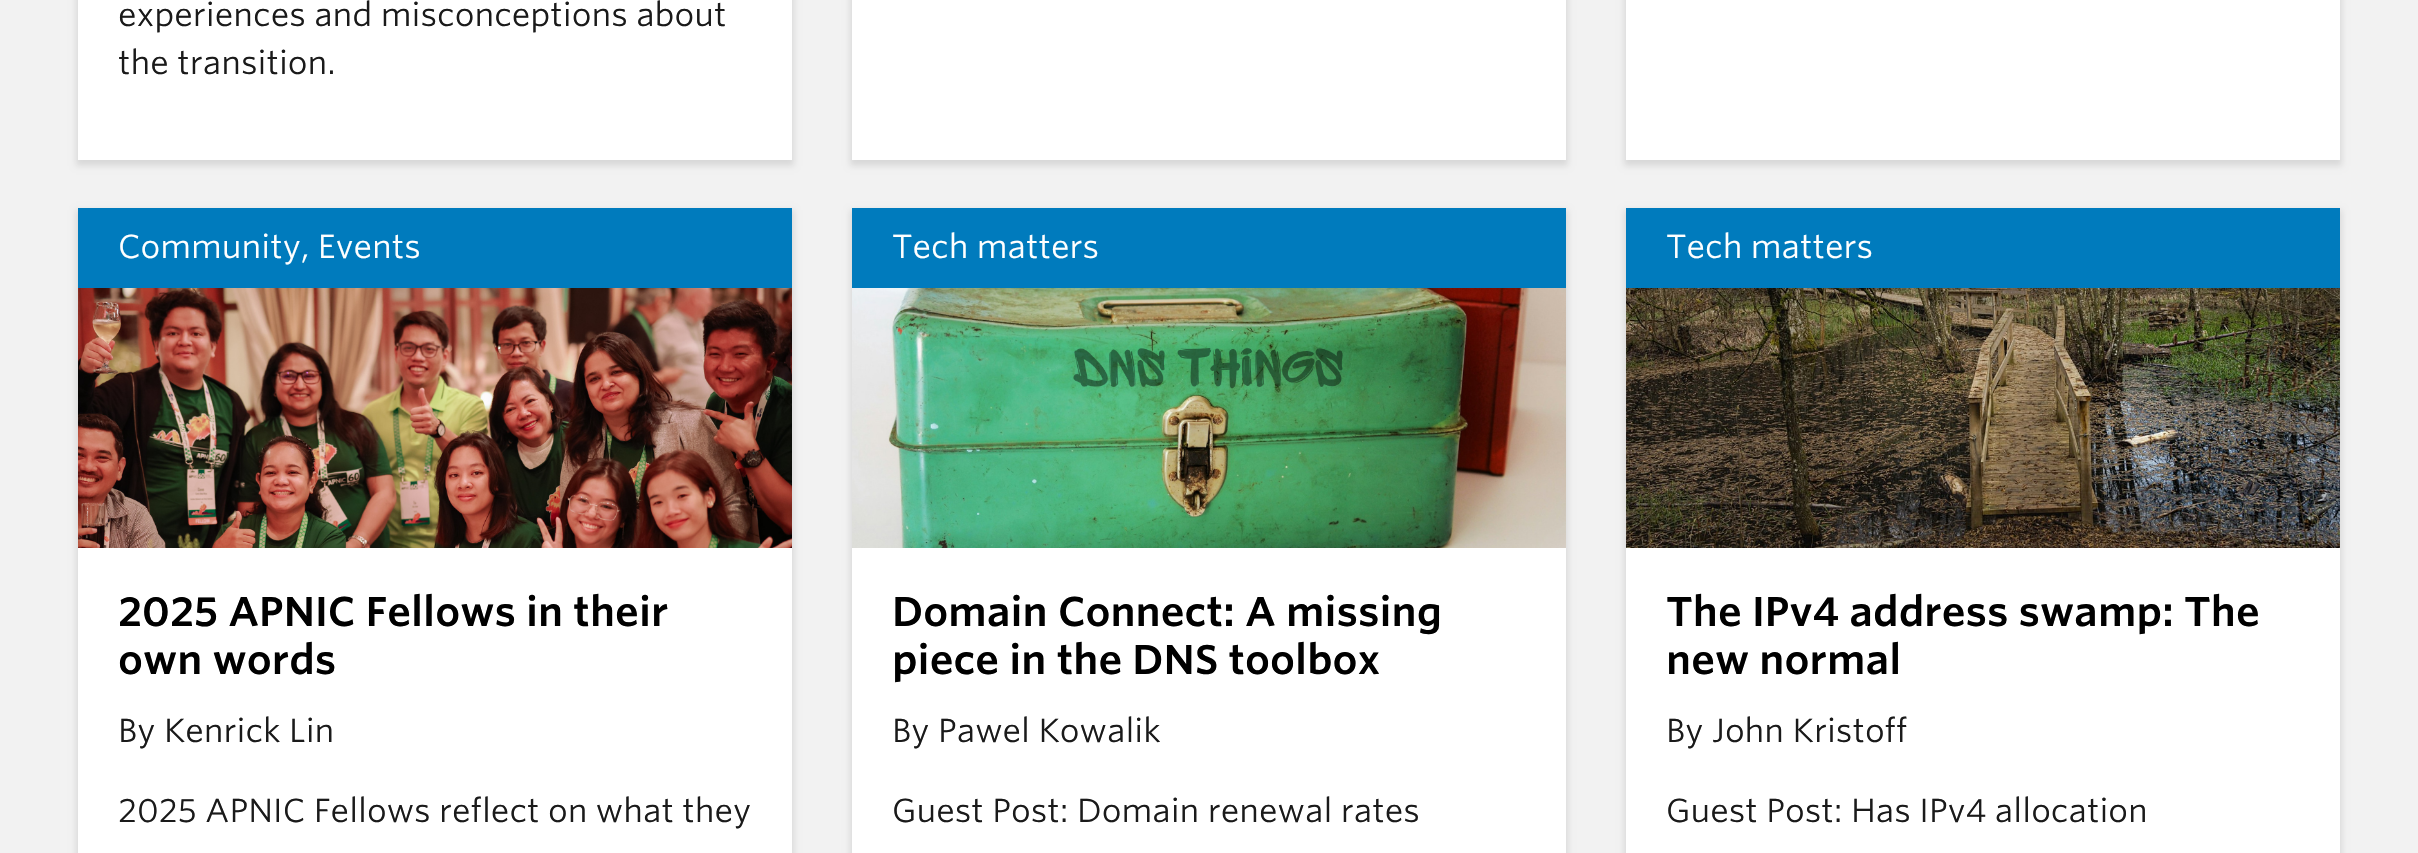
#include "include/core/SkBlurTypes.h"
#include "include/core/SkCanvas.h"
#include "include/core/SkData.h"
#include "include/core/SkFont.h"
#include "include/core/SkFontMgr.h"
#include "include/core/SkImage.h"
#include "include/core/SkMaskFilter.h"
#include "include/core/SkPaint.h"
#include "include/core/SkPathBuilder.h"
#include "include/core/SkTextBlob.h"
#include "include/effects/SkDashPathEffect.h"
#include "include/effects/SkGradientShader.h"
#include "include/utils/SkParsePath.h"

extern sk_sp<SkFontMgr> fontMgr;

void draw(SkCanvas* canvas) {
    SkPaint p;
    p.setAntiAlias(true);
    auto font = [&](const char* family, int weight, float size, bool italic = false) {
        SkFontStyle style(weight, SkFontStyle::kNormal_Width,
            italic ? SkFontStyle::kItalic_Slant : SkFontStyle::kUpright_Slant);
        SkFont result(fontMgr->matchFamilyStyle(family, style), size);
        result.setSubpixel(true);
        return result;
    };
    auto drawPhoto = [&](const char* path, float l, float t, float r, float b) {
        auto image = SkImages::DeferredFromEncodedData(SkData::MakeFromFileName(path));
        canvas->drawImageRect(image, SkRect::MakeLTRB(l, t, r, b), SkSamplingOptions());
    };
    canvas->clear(0xFFF2F2F2);
    p.setColor(0x1A000000);
    p.setMaskFilter(SkMaskFilter::MakeBlur(kNormal_SkBlurStyle, 3));
    canvas->drawRect(SkRect::MakeLTRB(76, -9, 794, 166), p);
    p.setMaskFilter(nullptr);
    p.setColor(0xFFFFFFFF);
    canvas->drawRect(SkRect::MakeLTRB(78, 0, 792, 160), p);
    auto font1 = font("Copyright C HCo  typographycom", 300, 32);
    p.setColor(0xFF1A1A1A);
    canvas->drawString("experiences and misconceptions about", 118, 26, font1, p);
    canvas->drawString("the transition.", 118, 74, font1, p);
    p.setColor(0x1A000000);
    p.setMaskFilter(SkMaskFilter::MakeBlur(kNormal_SkBlurStyle, 3));
    canvas->drawRect(SkRect::MakeLTRB(850, -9, 1568, 166), p);
    p.setMaskFilter(nullptr);
    p.setColor(0xFFFFFFFF);
    canvas->drawRect(SkRect::MakeLTRB(852, 0, 1566, 160), p);
    p.setColor(0x1A000000);
    p.setMaskFilter(SkMaskFilter::MakeBlur(kNormal_SkBlurStyle, 3));
    canvas->drawRect(SkRect::MakeLTRB(1624, -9, 2342, 166), p);
    p.setMaskFilter(nullptr);
    p.setColor(0xFFFFFFFF);
    canvas->drawRect(SkRect::MakeLTRB(1626, 0, 2340, 160), p);
    p.setColor(0x1A000000);
    p.setMaskFilter(SkMaskFilter::MakeBlur(kNormal_SkBlurStyle, 3));
    canvas->drawRect(SkRect::MakeLTRB(76, 210, 794, 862), p);
    p.setMaskFilter(nullptr);
    p.setColor(0xFFFFFFFF);
    canvas->drawRect(SkRect::MakeLTRB(78, 548, 792, 853), p);
    p.setColor(0xFF007BBD);
    canvas->drawRect(SkRect::MakeLTRB(78, 208, 792, 288), p);
    p.setColor(0xFFFFFFFF);
    canvas->drawString("Community, Events", 118, 258, font1, p);
    drawPhoto("media/1.png", 78, 288, 792, 548);
    auto font2 = font("Copyright C HCo  typographycom", 400, 40);
    p.setColor(0xFF000000);
    canvas->drawString("2025 APNIC Fellows in their", 118, 626, font2, p);
    canvas->drawString("own words", 118, 674, font2, p);
    p.setColor(0xFF1A1A1A);
    canvas->drawString("By Kenrick Lin", 118, 742, font1, p);
    canvas->drawString("2025 APNIC Fellows reflect on what they", 118, 822, font1, p);
    p.setColor(0x1A000000);
    p.setMaskFilter(SkMaskFilter::MakeBlur(kNormal_SkBlurStyle, 3));
    canvas->drawRect(SkRect::MakeLTRB(850, 210, 1568, 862), p);
    p.setMaskFilter(nullptr);
    p.setColor(0xFFFFFFFF);
    canvas->drawRect(SkRect::MakeLTRB(852, 548, 1566, 853), p);
    p.setColor(0xFF007BBD);
    canvas->drawRect(SkRect::MakeLTRB(852, 208, 1566, 288), p);
    p.setColor(0xFFFFFFFF);
    canvas->drawString("Tech matters", 892, 258, font1, p);
    drawPhoto("media/2.png", 852, 288, 1566, 548);
    p.setColor(0xFF000000);
    canvas->drawString("Domain Connect: A missing", 892, 626, font2, p);
    canvas->drawString("piece in the DNS toolbox", 892, 674, font2, p);
    p.setColor(0xFF1A1A1A);
    canvas->drawString("By Pawel Kowalik", 892, 742, font1, p);
    canvas->drawString("Guest Post: Domain renewal rates", 892, 822, font1, p);
    p.setColor(0x1A000000);
    p.setMaskFilter(SkMaskFilter::MakeBlur(kNormal_SkBlurStyle, 3));
    canvas->drawRect(SkRect::MakeLTRB(1624, 210, 2342, 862), p);
    p.setMaskFilter(nullptr);
    p.setColor(0xFFFFFFFF);
    canvas->drawRect(SkRect::MakeLTRB(1626, 548, 2340, 853), p);
    p.setColor(0xFF007BBD);
    canvas->drawRect(SkRect::MakeLTRB(1626, 208, 2340, 288), p);
    p.setColor(0xFFFFFFFF);
    canvas->drawString("Tech matters", 1666, 258, font1, p);
    drawPhoto("media/3.png", 1626, 288, 2340, 548);
    p.setColor(0xFF000000);
    canvas->drawString("The IPv4 address swamp: The", 1666, 626, font2, p);
    canvas->drawString("new normal", 1666, 674, font2, p);
    p.setColor(0xFF1A1A1A);
    canvas->drawString("By John Kristoff", 1666, 742, font1, p);
    canvas->drawString("Guest Post: Has IPv4 allocation", 1666, 822, font1, p);
}
